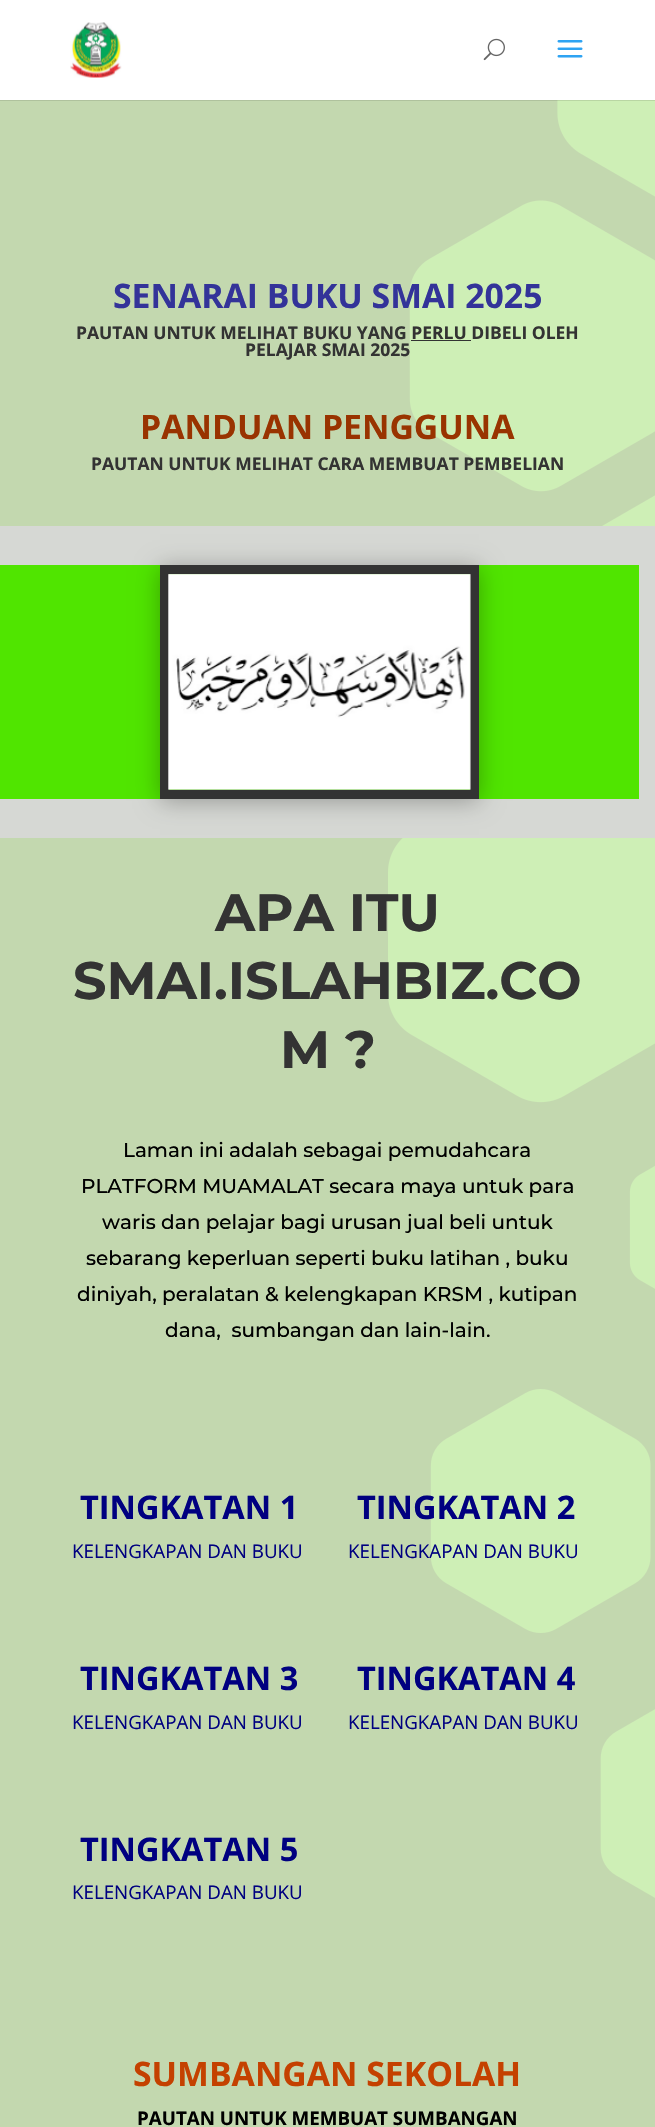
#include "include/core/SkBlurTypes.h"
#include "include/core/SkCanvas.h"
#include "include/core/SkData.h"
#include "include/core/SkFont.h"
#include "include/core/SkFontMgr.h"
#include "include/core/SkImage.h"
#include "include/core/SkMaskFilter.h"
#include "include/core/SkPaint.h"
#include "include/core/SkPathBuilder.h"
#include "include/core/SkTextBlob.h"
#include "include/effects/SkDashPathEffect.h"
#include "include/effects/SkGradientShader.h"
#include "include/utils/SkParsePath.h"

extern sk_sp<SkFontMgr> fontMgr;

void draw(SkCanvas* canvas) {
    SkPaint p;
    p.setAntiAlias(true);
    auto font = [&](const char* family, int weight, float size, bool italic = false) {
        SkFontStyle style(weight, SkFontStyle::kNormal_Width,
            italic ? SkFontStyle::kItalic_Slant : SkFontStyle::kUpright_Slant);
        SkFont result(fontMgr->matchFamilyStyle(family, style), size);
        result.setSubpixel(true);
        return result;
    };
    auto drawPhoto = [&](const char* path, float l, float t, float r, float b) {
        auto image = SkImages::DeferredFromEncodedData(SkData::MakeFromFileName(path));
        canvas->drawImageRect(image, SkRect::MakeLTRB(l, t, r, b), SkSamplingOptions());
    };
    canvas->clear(0xFFCEEFB6);
    drawPhoto("media/4.png", 0, 100, 655, 2127);
    p.setColor(0x1A000000);
    canvas->drawRect(SkRect::MakeLTRB(0, 100, 655, 101), p);
    p.setColor(0xFFFFFFFF);
    canvas->drawRect(SkRect::MakeLTRB(0, 0, 655, 100), p);
    drawPhoto("media/1.png", 70, 22, 122, 78);
    drawPhoto("media/2.png", 483, 38, 505, 61);
    drawPhoto("media/3.png", 557, 40, 583, 58);
    auto font1 = font("Open Sans", 700, 33.75f);
    p.setColor(0xFF333399);
    canvas->drawString("SENARAI BUKU SMAI 2025", 113, 308, font1, p);
    auto font2 = font("Open Sans", 700, 17.5f);
    p.setColor(0xFF333333);
    canvas->drawString("PAUTAN UNTUK MELIHAT BUKU YANG PERLU DIBELI OLEH", 76, 339, font2, p);
    canvas->drawRect(SkRect::MakeLTRB(411, 340, 471, 341), p);
    canvas->drawString("PELAJAR SMAI 2025", 245, 356, font2, p);
    p.setColor(0xFF993300);
    canvas->drawString("PANDUAN PENGGUNA", 140, 439, font1, p);
    p.setColor(0xFF333333);
    canvas->drawString("PAUTAN UNTUK MELIHAT CARA MEMBUAT PEMBELIAN", 91, 470, font2, p);
    p.setColor(0xFFD6D8D4);
    canvas->drawRect(SkRect::MakeLTRB(0, 526, 655, 838), p);
    p.setColor(0xFF50E500);
    canvas->drawRect(SkRect::MakeLTRB(0, 565, 639, 799), p);
    p.setColor(0x4D000000);
    p.setMaskFilter(SkMaskFilter::MakeBlur(kNormal_SkBlurStyle, 11.5f));
    canvas->drawRect(SkRect::MakeLTRB(160, 568, 479, 801), p);
    p.setMaskFilter(nullptr);
    p.setStyle(SkPaint::kStroke_Style);
    p.setStrokeWidth(9);
    p.setColor(0xFF333333);
    canvas->drawRect(SkRect::MakeLTRB(164.5f, 569.5f, 474.5f, 794.5f), p);
    drawPhoto("media/5.png", 168, 574, 471, 790);
    auto font3 = font("Montserrat", 700, 52.5f);
    p.setStyle(SkPaint::kFill_Style);
    {
        const struct { const char* s; float x, y; } items[] = {
            {"APA ITU", 215, 931},
            {"SMAI.ISLAHBIZ.CO", 73, 999},
            {"M ?", 280, 1068},
        };
        for (auto [s, x, y] : items) {
            canvas->drawString(s, x, y, font3, p);
        }
    }
    auto font4 = font("Montserrat", 500, 20);
    p.setColor(0xFF000000);
    {
        const struct { const char* s; float x, y; } items[] = {
            {"Laman ini adalah sebagai pemudahcara", 123, 1157},
            {"PLATFORM MUAMALAT secara maya untuk para", 81, 1193},
            {"waris dan pelajar bagi urusan jual beli untuk", 102, 1229},
            {"sebarang keperluan seperti buku latihan , buku", 86, 1265},
            {"diniyah, peralatan & kelengkapan KRSM , kutipan", 77, 1301},
            {"dana,  sumbangan dan lain-lain.", 165, 1337},
        };
        for (auto [s, x, y] : items) {
            canvas->drawString(s, x, y, font4, p);
        }
    }
    auto font5 = font("Open Sans", 700, 32.5f);
    p.setColor(0xFF000080);
    canvas->drawString("TINGKATAN 1", 80, 1519, font5, p);
    auto font6 = font("Open Sans", 400, 18.75f);
    canvas->drawString("KELENGKAPAN DAN BUKU", 72, 1558, font6, p);
    canvas->drawString("TINGKATAN 2", 357, 1519, font5, p);
    canvas->drawString("KELENGKAPAN DAN BUKU", 348, 1558, font6, p);
    canvas->drawString("TINGKATAN 3", 80, 1690, font5, p);
    canvas->drawString("KELENGKAPAN DAN BUKU", 72, 1729, font6, p);
    canvas->drawString("TINGKATAN 4", 357, 1690, font5, p);
    canvas->drawString("KELENGKAPAN DAN BUKU", 348, 1729, font6, p);
    canvas->drawString("TINGKATAN 5", 80, 1861, font5, p);
    canvas->drawString("KELENGKAPAN DAN BUKU", 72, 1899, font6, p);
    p.setColor(0xFFC44100);
    canvas->drawString("SUMBANGAN SEKOLAH", 133, 2086, font1, p);
    auto font7 = font("Open Sans", 700, 18.75f);
    p.setColor(0xFF000000);
    canvas->drawString("PAUTAN UNTUK MEMBUAT SUMBANGAN", 137, 2125, font7, p);
}
